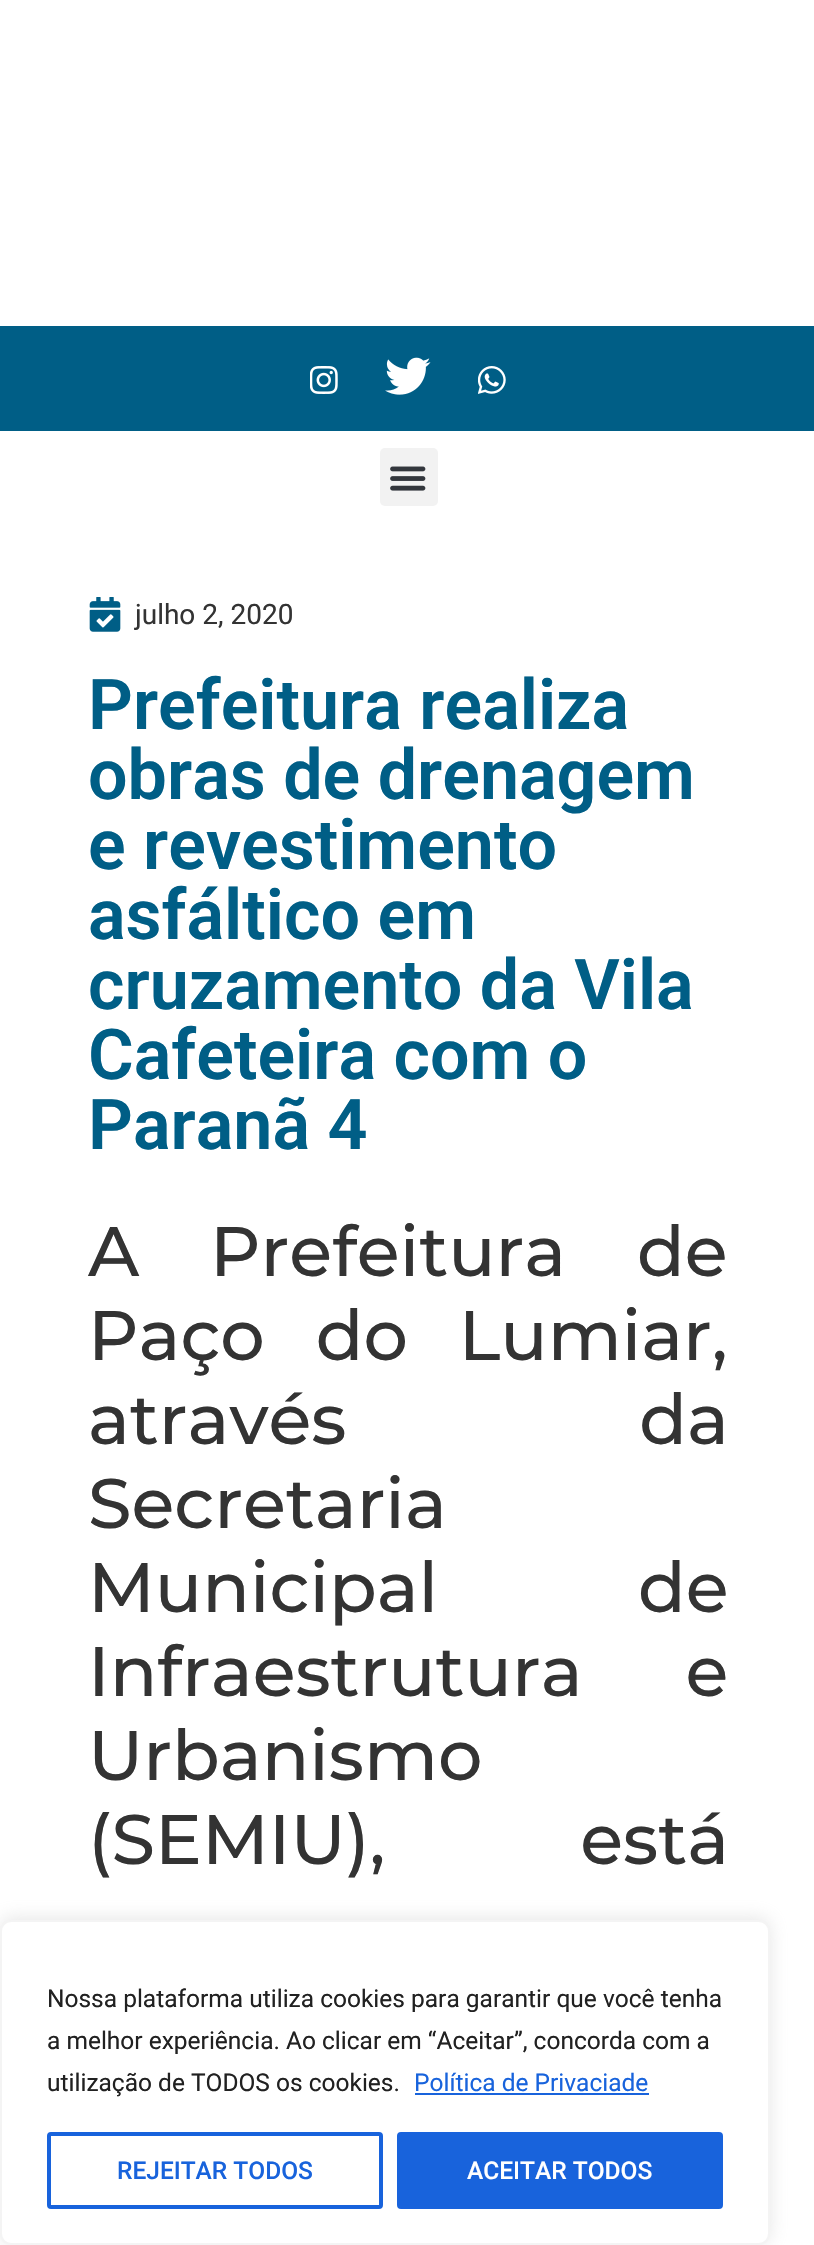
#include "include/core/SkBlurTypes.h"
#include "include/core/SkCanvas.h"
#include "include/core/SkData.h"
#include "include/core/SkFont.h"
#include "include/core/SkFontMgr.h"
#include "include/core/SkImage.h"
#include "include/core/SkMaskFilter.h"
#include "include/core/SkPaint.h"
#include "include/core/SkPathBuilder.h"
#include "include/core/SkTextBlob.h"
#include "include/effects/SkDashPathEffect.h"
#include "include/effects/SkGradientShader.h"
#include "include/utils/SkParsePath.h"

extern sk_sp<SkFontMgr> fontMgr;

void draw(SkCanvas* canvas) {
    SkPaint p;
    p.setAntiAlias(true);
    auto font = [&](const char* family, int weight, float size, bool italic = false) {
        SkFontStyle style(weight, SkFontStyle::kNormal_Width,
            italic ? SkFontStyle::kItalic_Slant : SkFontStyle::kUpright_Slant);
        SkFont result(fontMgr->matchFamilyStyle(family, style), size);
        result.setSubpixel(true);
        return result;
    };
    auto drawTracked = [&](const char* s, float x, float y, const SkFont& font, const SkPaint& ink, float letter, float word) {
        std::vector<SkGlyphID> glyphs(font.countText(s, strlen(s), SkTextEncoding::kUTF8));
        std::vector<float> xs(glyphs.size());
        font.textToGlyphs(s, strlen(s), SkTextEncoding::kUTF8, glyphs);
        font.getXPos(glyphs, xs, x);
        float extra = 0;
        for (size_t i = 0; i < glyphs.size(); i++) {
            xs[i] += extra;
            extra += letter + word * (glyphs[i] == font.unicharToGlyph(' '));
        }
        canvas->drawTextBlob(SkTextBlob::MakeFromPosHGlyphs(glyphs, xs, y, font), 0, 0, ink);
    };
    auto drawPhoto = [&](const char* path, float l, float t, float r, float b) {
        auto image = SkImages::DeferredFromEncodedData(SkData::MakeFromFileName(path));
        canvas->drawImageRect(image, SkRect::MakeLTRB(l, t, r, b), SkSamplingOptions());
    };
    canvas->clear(0xFFFFFFFF);
    p.setColor(0xFF005E86);
    canvas->drawRect(SkRect::MakeLTRB(0, 326, 814, 431), p);
    drawPhoto("media/1.png", 310, 366, 338, 394);
    drawPhoto("media/2.png", 385, 357, 431, 395);
    drawPhoto("media/3.png", 478, 366, 506, 394);
    p.setColor(0xFFF2F2F2);
    canvas->drawRoundRect(SkRect::MakeLTRB(380, 448, 438, 506), 5, 5, p);
    drawPhoto("media/4.png", 390, 466, 426, 491);
    drawPhoto("media/5.png", 89, 597, 121, 632);
    auto font1 = font("Roboto", 400, 28);
    p.setColor(0xFF333333);
    canvas->drawString("julho 2, 2020", 135, 624, font1, p);
    auto font2 = font("Roboto", 600, 70);
    p.setColor(0xFF005E86);
    {
        const struct { const char* s; float x, y; } items[] = {
            {"Prefeitura realiza", 88, 729},
            {"obras de drenagem", 88, 799},
            {"e revestimento", 88, 869},
            {"asfáltico em", 88, 939},
            {"cruzamento da Vila", 88, 1009},
            {"Cafeteira com o", 88, 1079},
            {"Paranã 4", 88, 1149},
        };
        for (auto [s, x, y] : items) {
            canvas->drawString(s, x, y, font2, p);
        }
    }
    auto font3 = font("Montserrat", 500, 70);
    p.setColor(0xFF333333);
    drawTracked("A Prefeitura de", 88, 1276, font3, p, 0, 52);
    drawTracked("Paço do Lumiar,", 88, 1360, font3, p, 0, 32);
    drawTracked("através da", 88, 1444, font3, p, 0, 274);
    canvas->drawString("Secretaria", 88, 1528, font3, p);
    drawTracked("Municipal de", 88, 1612, font3, p, 0, 181);
    drawTracked("Infraestrutura e", 88, 1696, font3, p, 0, 84);
    canvas->drawString("Urbanismo", 88, 1780, font3, p);
    drawTracked("(SEMIU), está", 88, 1864, font3, p, 0, 176);
    p.setColor(0x4DACABAB);
    p.setMaskFilter(SkMaskFilter::MakeBlur(kNormal_SkBlurStyle, 9));
    canvas->drawRoundRect(SkRect::MakeLTRB(0, 1918, 770, 2244), 11, 11, p);
    p.setMaskFilter(nullptr);
    p.setColor(0xFFFFFFFF);
    canvas->drawRoundRect(SkRect::MakeLTRB(1, 1921, 769, 2244), 10, 10, p);
    p.setStyle(SkPaint::kStroke_Style);
    p.setStrokeWidth(2);
    p.setColor(0xFFF4F4F4);
    canvas->drawRoundRect(SkRect::MakeLTRB(1, 1921, 769, 2244), 10, 10, p);
    auto font4 = font("Roboto", 400, 24.5f);
    p.setStyle(SkPaint::kFill_Style);
    p.setColor(0xFF212121);
    {
        const struct { const char* s; float x, y; } items[] = {
            {"Nossa plataforma utiliza cookies para garantir que você tenha", 47, 2007},
            {"a melhor experiência. Ao clicar em “Aceitar”, concorda com a", 47, 2049},
            {"utilização de TODOS os cookies.", 47, 2091},
        };
        for (auto [s, x, y] : items) {
            canvas->drawString(s, x, y, font4, p);
        }
    }
    p.setColor(0xFF1863DC);
    canvas->drawString("Política de Privaciade", 414, 2091, font4, p);
    canvas->drawRect(SkRect::MakeLTRB(415, 2093, 649, 2095), p);
    p.setStyle(SkPaint::kStroke_Style);
    p.setStrokeWidth(4);
    canvas->drawRoundRect(SkRect::MakeLTRB(49, 2134, 381, 2207), 2, 2, p);
    auto font5 = font("Roboto", 500, 24.5f);
    p.setStyle(SkPaint::kFill_Style);
    canvas->drawString("REJEITAR TODOS", 117, 2179, font5, p);
    canvas->drawRoundRect(SkRect::MakeLTRB(399, 2134, 721, 2207), 2, 2, p);
    p.setStyle(SkPaint::kStroke_Style);
    canvas->drawRoundRect(SkRect::MakeLTRB(399, 2134, 721, 2207), 2, 2, p);
    p.setStyle(SkPaint::kFill_Style);
    p.setColor(0xFFFFFFFF);
    canvas->drawString("ACEITAR TODOS", 467, 2179, font5, p);
}
